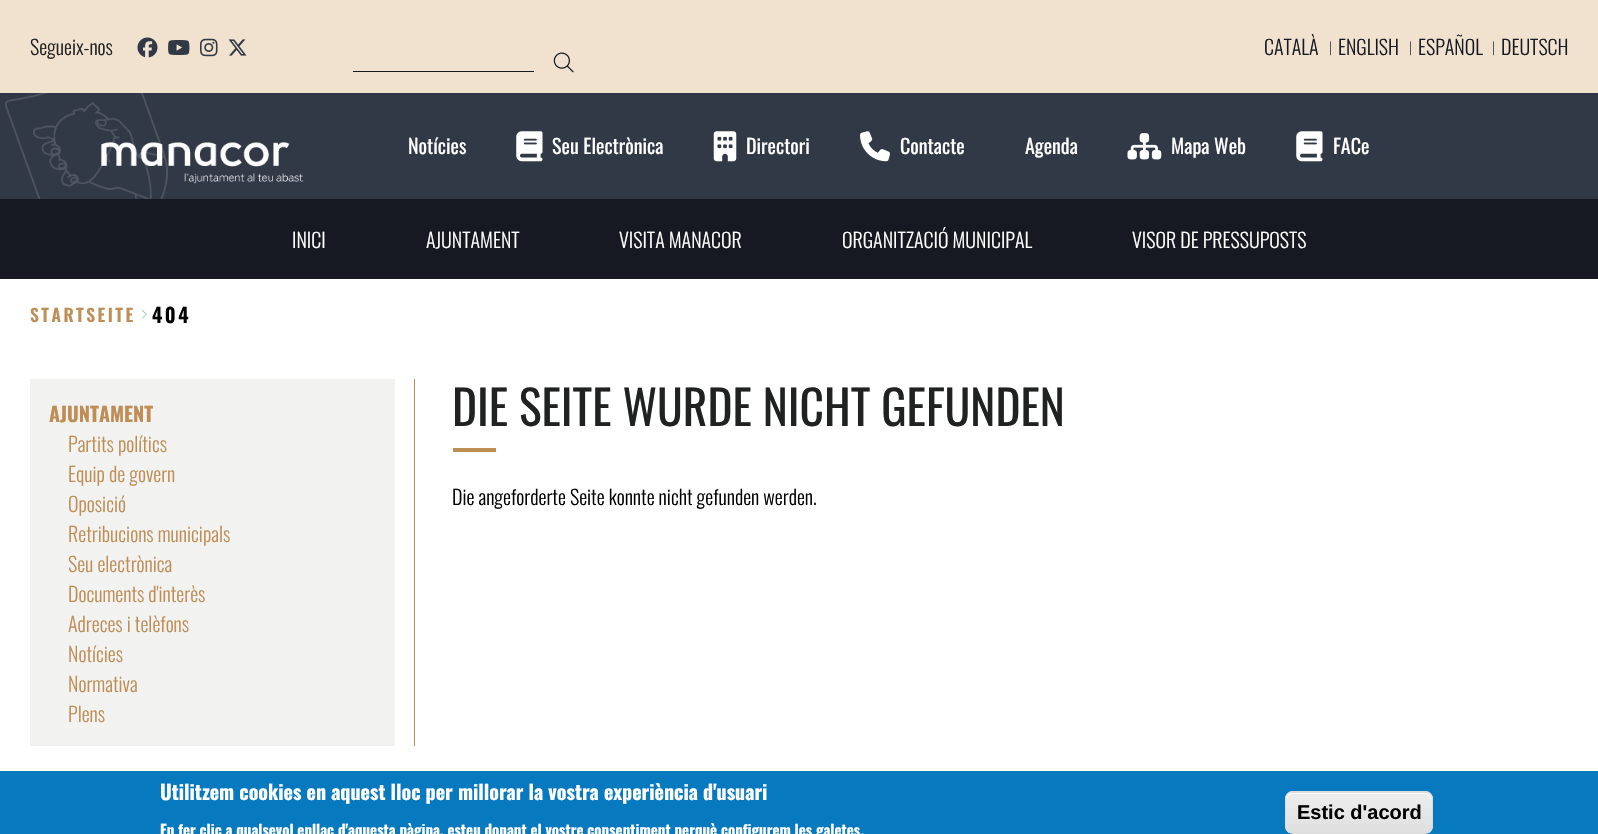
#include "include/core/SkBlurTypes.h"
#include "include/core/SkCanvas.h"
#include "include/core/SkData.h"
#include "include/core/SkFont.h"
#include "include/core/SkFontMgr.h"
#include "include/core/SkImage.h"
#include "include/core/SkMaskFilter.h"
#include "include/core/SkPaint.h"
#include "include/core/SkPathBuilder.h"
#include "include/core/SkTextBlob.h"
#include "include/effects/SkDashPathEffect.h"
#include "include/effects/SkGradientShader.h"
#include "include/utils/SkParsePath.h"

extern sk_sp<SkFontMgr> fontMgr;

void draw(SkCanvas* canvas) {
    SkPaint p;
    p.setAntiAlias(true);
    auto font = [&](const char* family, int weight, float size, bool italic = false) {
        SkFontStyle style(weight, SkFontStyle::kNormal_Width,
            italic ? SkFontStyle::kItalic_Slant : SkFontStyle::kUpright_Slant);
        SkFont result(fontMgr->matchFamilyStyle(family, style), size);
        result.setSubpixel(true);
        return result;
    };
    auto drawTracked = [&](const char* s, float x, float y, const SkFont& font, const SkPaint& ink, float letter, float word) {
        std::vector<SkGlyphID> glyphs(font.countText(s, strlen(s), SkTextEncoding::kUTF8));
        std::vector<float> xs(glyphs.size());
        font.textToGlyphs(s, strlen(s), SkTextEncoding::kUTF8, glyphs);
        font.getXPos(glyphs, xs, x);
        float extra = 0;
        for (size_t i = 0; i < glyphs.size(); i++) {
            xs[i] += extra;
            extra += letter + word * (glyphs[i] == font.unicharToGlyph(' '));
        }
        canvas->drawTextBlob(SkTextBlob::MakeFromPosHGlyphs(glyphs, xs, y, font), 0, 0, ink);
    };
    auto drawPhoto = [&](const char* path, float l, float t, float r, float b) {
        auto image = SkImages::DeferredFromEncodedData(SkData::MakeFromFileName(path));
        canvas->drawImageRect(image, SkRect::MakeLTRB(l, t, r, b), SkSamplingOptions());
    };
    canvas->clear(0xFF161921);
    p.setColor(0xFFF1E2CF);
    canvas->drawRect(SkRect::MakeLTRB(0, 0, 1598, 93), p);
    auto font1 = font("Oswald", 300, 20);
    p.setColor(0xFF202121);
    canvas->drawString("Segueix-nos", 30, 55, font1, p);
    drawPhoto("media/1.png", 137, 37, 158, 58);
    drawPhoto("media/2.png", 168, 40, 190, 55);
    drawPhoto("media/3.png", 200, 38, 218, 57);
    drawPhoto("media/4.png", 228, 39, 247, 56);
    p.setColor(0xFF161921);
    canvas->drawString("CATALÀ", 1264, 55, font1, p);
    auto font2 = font("Liberation Serif", 400, 15);
    p.setColor(0xFF323946);
    canvas->drawString("|", 1329, 52, font2, p);
    p.setColor(0xFF161921);
    canvas->drawString("ENGLISH", 1338, 55, font1, p);
    p.setColor(0xFF323946);
    canvas->drawString("|", 1409, 52, font2, p);
    p.setColor(0xFF161921);
    canvas->drawString("ESPAÑOL", 1418, 55, font1, p);
    p.setColor(0xFF323946);
    canvas->drawString("|", 1492, 52, font2, p);
    p.setColor(0xFF161921);
    canvas->drawString("DEUTSCH", 1501, 55, font1, p);
    canvas->drawRect(SkRect::MakeLTRB(353, 71, 534, 72), p);
    drawPhoto("media/5.png", 553, 52, 574, 73);
    p.setColor(0xFF323946);
    canvas->drawRect(SkRect::MakeLTRB(0, 93, 1598, 199), p);
    drawPhoto("media/6.png", 5, 93, 304, 199);
    auto font3 = font("Oswald", 400, 20);
    p.setColor(0xFFFFFFFF);
    canvas->drawString("Notícies", 408, 154, font3, p);
    drawPhoto("media/7.png", 516, 131, 543, 162);
    canvas->drawString("Seu Electrònica", 552, 154, font3, p);
    drawPhoto("media/8.png", 713, 131, 737, 162);
    canvas->drawString("Directori", 746, 154, font3, p);
    drawPhoto("media/9.png", 860, 131, 890, 162);
    canvas->drawString("Contacte", 900, 154, font3, p);
    canvas->drawString("Agenda", 1025, 154, font3, p);
    drawPhoto("media/10.png", 1127, 133, 1162, 160);
    canvas->drawString("Mapa Web", 1171, 154, font3, p);
    drawPhoto("media/7.png", 1296, 131, 1323, 162);
    canvas->drawString("FACe", 1333, 154, font3, p);
    {
        const struct { const char* s; float x, y; } items[] = {
            {"INICI", 292, 248},
            {"AJUNTAMENT", 426, 248},
            {"VISITA MANACOR", 619, 248},
            {"ORGANITZACIÓ MUNICIPAL", 842, 248},
            {"VISOR DE PRESSUPOSTS", 1132, 248},
        };
        for (auto [s, x, y] : items) {
            canvas->drawString(s, x, y, font1, p);
        }
    }
    canvas->drawRect(SkRect::MakeLTRB(0, 279, 1598, 771), p);
    auto font4 = font("Oswald", 600, 17.5f);
    p.setColor(0xFFBE8E56);
    drawTracked("STARTSEITE", 30, 322, font4, p, 2.5f, 0);
    drawPhoto("media/11.png", 142, 310, 147, 319);
    auto font5 = font("Oswald", 600, 20);
    p.setColor(0xFF000000);
    drawTracked("404", 152, 323, font5, p, 2.5f, 0);
    p.setColor(0xFFBE8E56);
    canvas->drawRect(SkRect::MakeLTRB(414, 379, 415, 746), p);
    p.setColor(0xFFF2F2F1);
    canvas->drawRect(SkRect::MakeLTRB(30, 379, 395, 746), p);
    auto font6 = font("Oswald", 700, 20);
    p.setColor(0xFFBE8E56);
    canvas->drawString("AJUNTAMENT", 49, 422, font6, p);
    {
        const struct { const char* s; float x, y; } items[] = {
            {"Partits polítics", 68, 452},
            {"Equip de govern", 68, 482},
            {"Oposició", 68, 512},
            {"Retribucions municipals", 68, 542},
            {"Seu electrònica", 68, 572},
            {"Documents d'interès", 68, 602},
            {"Adreces i telèfons", 68, 632},
            {"Notícies", 68, 662},
            {"Normativa", 68, 692},
            {"Plens", 68, 722},
        };
        for (auto [s, x, y] : items) {
            canvas->drawString(s, x, y, font1, p);
        }
    }
    auto font7 = font("Oswald", 400, 47.5f);
    p.setColor(0xFF202121);
    canvas->drawString("DIE SEITE WURDE NICHT GEFUNDEN", 452, 426, font7, p);
    p.setColor(0xFFBE8E56);
    canvas->drawRect(SkRect::MakeLTRB(453, 448, 496, 452), p);
    p.setColor(0xFF000000);
    canvas->drawString("Die angeforderte Seite konnte nicht gefunden werden.", 452, 505, font1, p);
    p.setColor(0xFF0779BF);
    canvas->drawRect(SkRect::MakeLTRB(0, 771, 1598, 834), p);
    p.setColor(0xFFFFFFFF);
    canvas->drawString("Utilitzem cookies en aquest lloc per millorar la vostra experiència d'usuari", 160, 800, font6, p);
    auto font8 = font("Oswald", 700, 15);
    canvas->drawString("En fer clic a qualsevol enllaç d'aquesta pàgina, esteu donant el vostre consentiment perquè configurem les galetes.", 160, 836, font8, p);
    canvas->save();
    canvas->clipPath(SkPathBuilder().moveTo(1293, 791).lineTo(1425, 791).cubicTo(1429.5f, 791, 1433, 794.5f, 1433, 799).lineTo(1433, 826).cubicTo(1433, 830.5f, 1429.5f, 834, 1425, 834).lineTo(1293, 834).cubicTo(1288.5f, 834, 1285, 830.5f, 1285, 826).lineTo(1285, 799).cubicTo(1285, 794.5f, 1288.5f, 791, 1293, 791).close().detach(), true);
    {
        const SkColor colors[] = {0xFFEDEDED, 0xFFDFDFDF};
        const float stops[] = {0.05f, 1};
        const SkPoint ends[] = {{1359, 753}, {1359, 793}};
        p.setShader(SkGradientShader::MakeLinear(ends, colors, stops, 2, SkTileMode::kClamp));
        p.setAlpha(255);
    }
    canvas->drawRect(SkRect::MakeLTRB(1285, 791, 1433, 793), p);
    {
        const SkColor colors[] = {0xFFEDEDED, 0xFFDFDFDF};
        const float stops[] = {0.05f, 1};
        const SkPoint ends[] = {{1359, 793}, {1359, 833}};
        p.setShader(SkGradientShader::MakeLinear(ends, colors, stops, 2, SkTileMode::kClamp));
        p.setAlpha(255);
    }
    canvas->drawRect(SkRect::MakeLTRB(1285, 793, 1433, 833), p);
    canvas->restore();
    p.setShader(nullptr);
    p.setColor(0xFFFFFFFF);
    canvas->drawPath(SkPathBuilder().moveTo(1292, 794).lineTo(1425, 794).cubicTo(1428, 794, 1431, 797, 1431, 800).lineTo(1431, 799).cubicTo(1431, 796, 1428, 793, 1425, 793).lineTo(1292, 793).cubicTo(1289, 793, 1286, 796, 1286, 799).lineTo(1286, 800).cubicTo(1286, 797, 1289, 794, 1292, 794).close().detach(), p);
    p.setStyle(SkPaint::kStroke_Style);
    p.setStrokeWidth(1);
    p.setColor(0xFFDCDCDC);
    canvas->drawRoundRect(SkRect::MakeLTRB(1285.5f, 791.5f, 1432.5f, 833.5f), 7.5f, 7.5f, p);
    auto font9 = font("Liberation Sans", 700, 20);
    p.setStyle(SkPaint::kFill_Style);
    p.setColor(0xFF000000);
    canvas->drawString("Estic d'acord", 1297, 819, font9, p);
}
